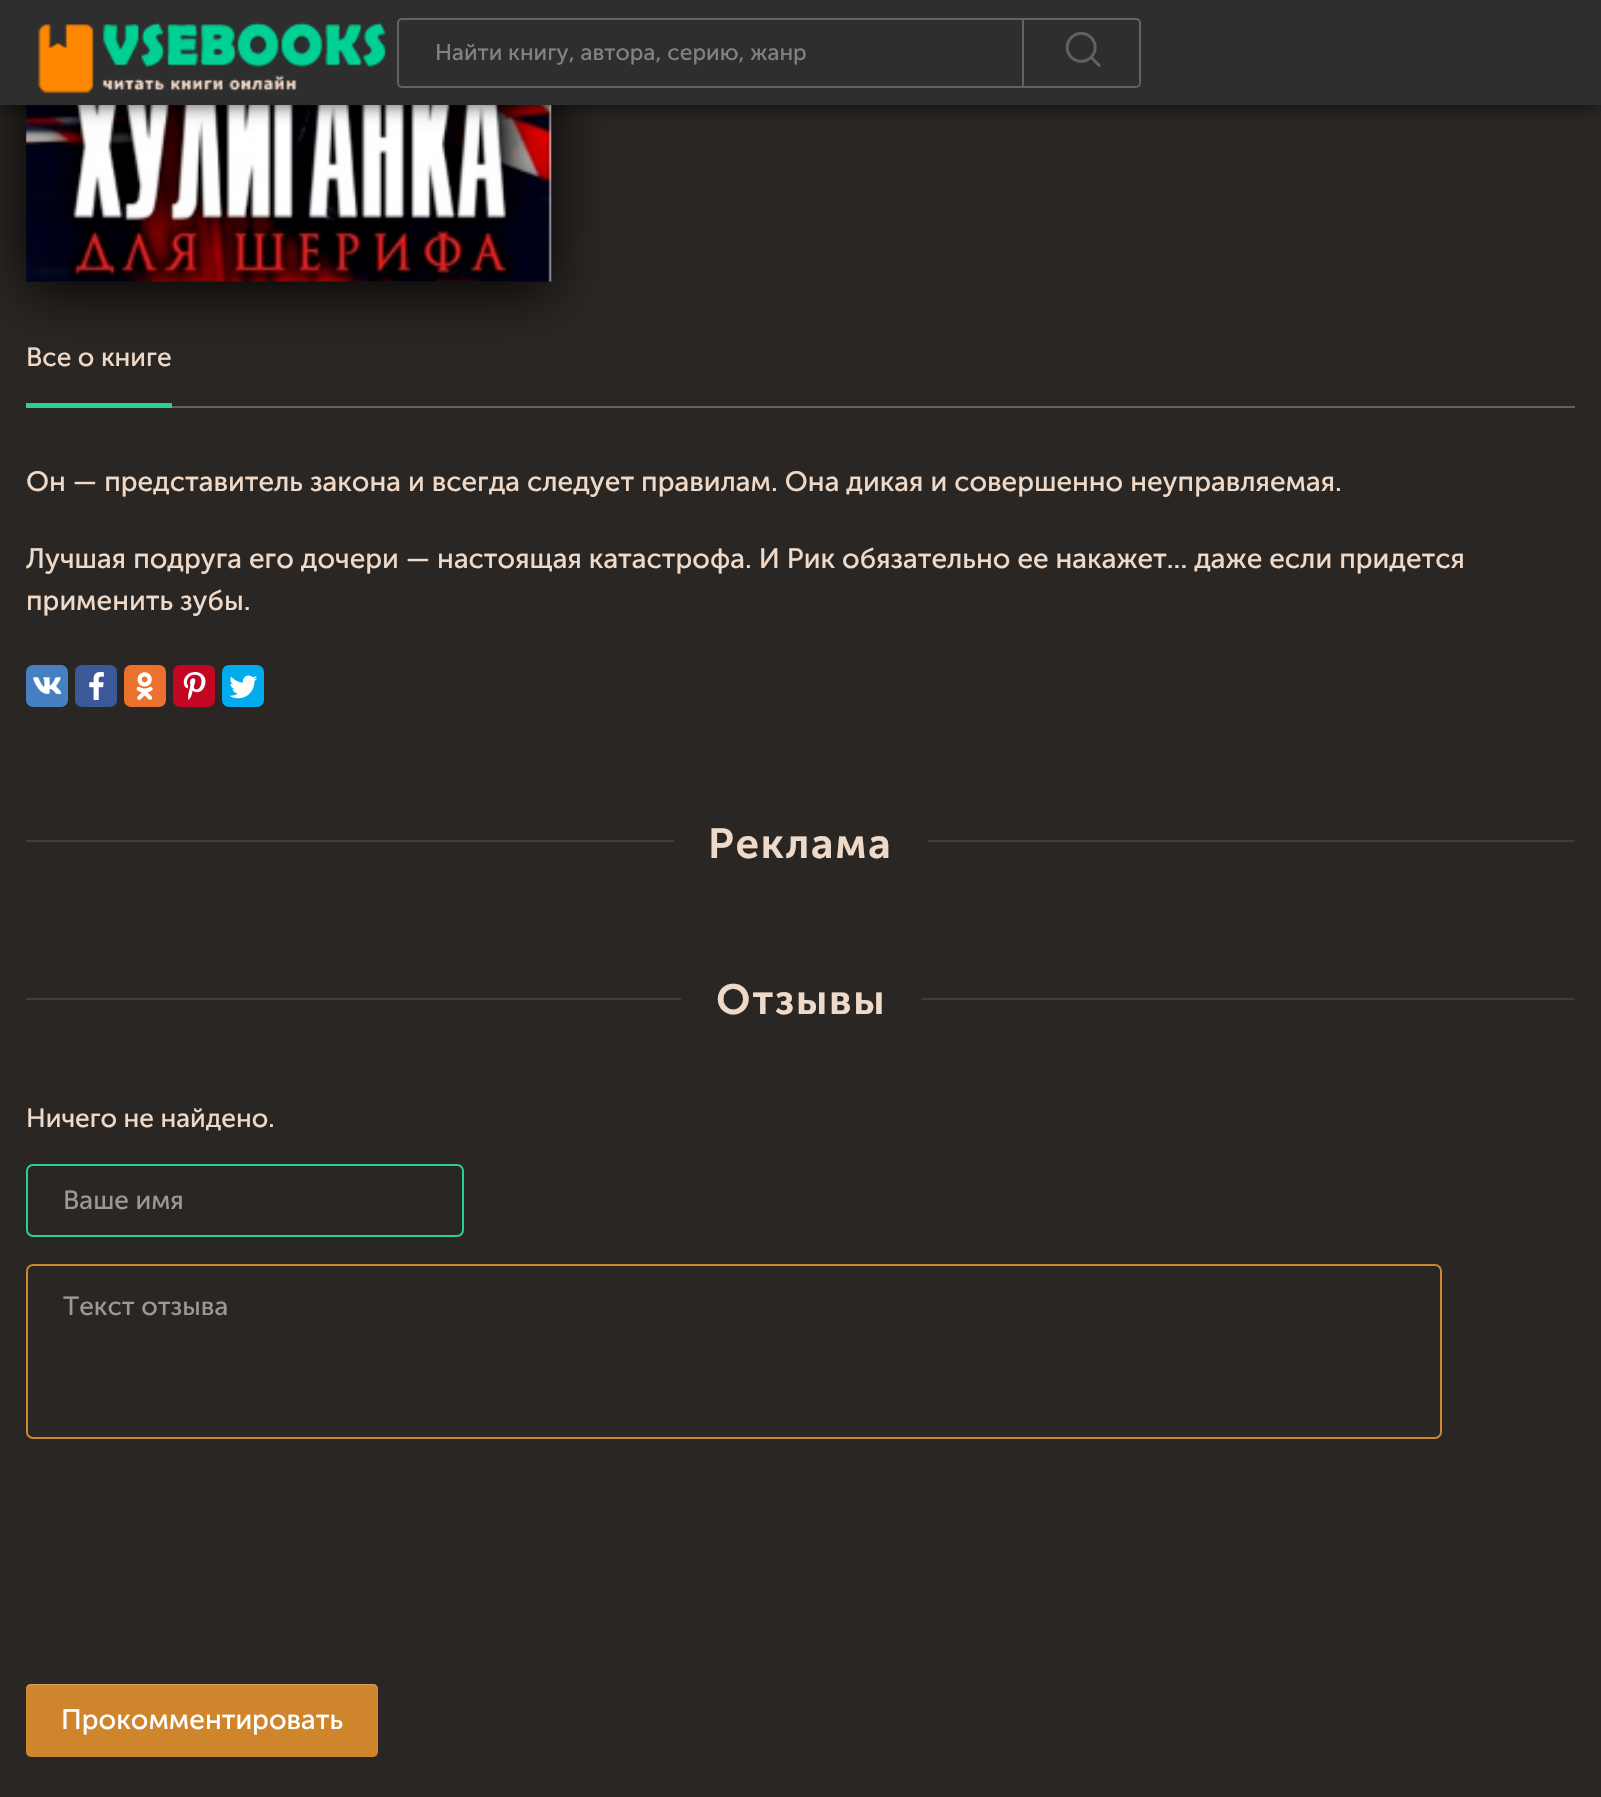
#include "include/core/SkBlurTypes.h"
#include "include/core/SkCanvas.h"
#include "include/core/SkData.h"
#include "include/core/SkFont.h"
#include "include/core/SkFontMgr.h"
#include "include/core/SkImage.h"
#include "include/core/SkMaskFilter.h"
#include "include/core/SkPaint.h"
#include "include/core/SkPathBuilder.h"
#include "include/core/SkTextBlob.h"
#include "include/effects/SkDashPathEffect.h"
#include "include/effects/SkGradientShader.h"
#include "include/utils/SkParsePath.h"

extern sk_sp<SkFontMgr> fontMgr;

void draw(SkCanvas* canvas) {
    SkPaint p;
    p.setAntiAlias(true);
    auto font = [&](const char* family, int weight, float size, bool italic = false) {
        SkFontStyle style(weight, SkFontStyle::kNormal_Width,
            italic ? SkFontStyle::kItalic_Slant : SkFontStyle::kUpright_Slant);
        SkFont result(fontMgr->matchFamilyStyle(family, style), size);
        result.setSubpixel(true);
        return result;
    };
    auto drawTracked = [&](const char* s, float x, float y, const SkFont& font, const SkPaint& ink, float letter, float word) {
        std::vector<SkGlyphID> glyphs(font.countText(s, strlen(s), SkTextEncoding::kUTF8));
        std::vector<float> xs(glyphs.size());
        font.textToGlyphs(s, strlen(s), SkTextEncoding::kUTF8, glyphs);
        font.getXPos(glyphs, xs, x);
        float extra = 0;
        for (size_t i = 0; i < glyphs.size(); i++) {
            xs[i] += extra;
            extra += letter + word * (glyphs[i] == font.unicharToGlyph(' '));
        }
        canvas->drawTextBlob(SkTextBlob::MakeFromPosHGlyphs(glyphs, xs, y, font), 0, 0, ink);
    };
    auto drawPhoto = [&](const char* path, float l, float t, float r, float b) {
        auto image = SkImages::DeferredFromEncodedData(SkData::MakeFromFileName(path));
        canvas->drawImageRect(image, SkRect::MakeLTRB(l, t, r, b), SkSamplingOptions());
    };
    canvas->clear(0xFF2A2623);
    p.setColor(0xE6000000);
    p.setMaskFilter(SkMaskFilter::MakeBlur(kNormal_SkBlurStyle, 28));
    canvas->drawRect(SkRect::MakeLTRB(26, -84, 551, 291), p);
    p.setMaskFilter(nullptr);
    p.setColor(0xFF181818);
    canvas->drawRect(SkRect::MakeLTRB(26, 105, 551, 282), p);
    drawPhoto("media/3.png", 26, 105, 552, 282);
    p.setColor(0xB3000000);
    p.setMaskFilter(SkMaskFilter::MakeBlur(kNormal_SkBlurStyle, 9));
    canvas->drawRect(SkRect::MakeLTRB(0, 0, 1601, 105), p);
    p.setMaskFilter(nullptr);
    p.setColor(0xFF2E2E2E);
    canvas->drawRect(SkRect::MakeLTRB(0, 0, 1601, 105), p);
    drawPhoto("media/1.png", 38, 22, 386, 94);
    p.setStyle(SkPaint::kStroke_Style);
    p.setStrokeWidth(2);
    p.setColor(0xFF626262);
    canvas->drawRoundRect(SkRect::MakeLTRB(398, 19, 1140, 87), 4, 4, p);
    auto font1 = font("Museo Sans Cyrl", 400, 22.75f);
    p.setStyle(SkPaint::kFill_Style);
    p.setColor(0xFF828282);
    canvas->drawString("Найти книгу, автора, серию, жанр", 435, 60, font1, p);
    p.setColor(0xFF626262);
    canvas->drawRect(SkRect::MakeLTRB(1022, 18, 1024, 88), p);
    drawPhoto("media/2.png", 1065, 32, 1101, 67);
    auto font2 = font("Museo Sans Cyrl", 400, 26.25f);
    p.setColor(0xFFEFDAC9);
    canvas->drawString("Все о книге", 26, 366, font2, p);
    p.setColor(0xFF2CCF95);
    canvas->drawRect(SkRect::MakeLTRB(26, 403, 172, 408), p);
    p.setColor(0xFF626262);
    canvas->drawRect(SkRect::MakeLTRB(172, 406, 1575, 408), p);
    auto font3 = font("Museo Sans Cyrl", 400, 28);
    p.setColor(0xFFEFDAC9);
    {
        const struct { const char* s; float x, y; } items[] = {
            {"Он — представитель закона и всегда следует правилам. Она дикая и совершенно неуправляемая.", 26, 491},
            {"Лучшая подруга его дочери — настоящая катастрофа. И Рик обязательно ее накажет... даже если придется", 26, 568},
            {"применить зубы.", 26, 610},
        };
        for (auto [s, x, y] : items) {
            canvas->drawString(s, x, y, font3, p);
        }
    }
    p.setColor(0xFF4680C2);
    canvas->drawRoundRect(SkRect::MakeLTRB(26, 665, 68, 707), 7, 7, p);
    drawPhoto("media/4.png", 33, 677, 62, 694);
    p.setColor(0xFF3B5998);
    canvas->drawRoundRect(SkRect::MakeLTRB(75, 665, 117, 707), 7, 7, p);
    drawPhoto("media/5.png", 89, 672, 104, 700);
    p.setColor(0xFFEB722E);
    canvas->drawRoundRect(SkRect::MakeLTRB(124, 665, 166, 707), 7, 7, p);
    drawPhoto("media/6.png", 136, 672, 153, 700);
    p.setColor(0xFFC20724);
    canvas->drawRoundRect(SkRect::MakeLTRB(173, 665, 215, 707), 7, 7, p);
    drawPhoto("media/7.png", 183, 672, 206, 700);
    p.setColor(0xFF00ACED);
    canvas->drawRoundRect(SkRect::MakeLTRB(222, 665, 264, 707), 7, 7, p);
    drawPhoto("media/8.png", 229, 675, 258, 699);
    p.setColor(0xFF3F3C39);
    canvas->drawRect(SkRect::MakeLTRB(26, 840, 674, 842), p);
    auto font4 = font("Museo Sans Cyrl", 600, 42);
    p.setColor(0xFFEFDAC9);
    drawTracked("Реклама", 708, 858, font4, p, 1.75f, 0);
    p.setColor(0xFF3F3C39);
    canvas->drawRect(SkRect::MakeLTRB(928, 840, 1575, 842), p);
    canvas->drawRect(SkRect::MakeLTRB(26, 998, 681, 1000), p);
    p.setColor(0xFFEFDAC9);
    drawTracked("Отзывы", 716, 1014, font4, p, 1.75f, 0);
    p.setColor(0xFF3F3C39);
    canvas->drawRect(SkRect::MakeLTRB(921, 998, 1575, 1000), p);
    p.setColor(0xFFEFDAC9);
    canvas->drawString("Ничего не найдено.", 26, 1127, font2, p);
    p.setColor(0xFF272320);
    canvas->drawPath(SkPathBuilder().moveTo(33, 1167).lineTo(457, 1167).cubicTo(460, 1167, 462, 1170, 462, 1172).cubicTo(462, 1169, 460, 1166, 457, 1166).lineTo(33, 1166).cubicTo(30, 1166, 28, 1169, 28, 1172).cubicTo(28, 1170, 30, 1167, 33, 1167).close().detach(), p);
    p.setStyle(SkPaint::kStroke_Style);
    p.setColor(0xFF2CCF95);
    canvas->drawRoundRect(SkRect::MakeLTRB(27, 1165, 463, 1236), 6, 6, p);
    p.setStyle(SkPaint::kFill_Style);
    p.setColor(0xFF999999);
    canvas->drawString("Ваше имя", 63, 1209, font2, p);
    p.setStyle(SkPaint::kStroke_Style);
    p.setColor(0xFFCF852C);
    canvas->drawRoundRect(SkRect::MakeLTRB(27, 1265, 1441, 1438), 6, 6, p);
    p.setStyle(SkPaint::kFill_Style);
    p.setColor(0xFF999999);
    canvas->drawString("Текст отзыва", 63, 1315, font2, p);
    p.setColor(0xFFCF852C);
    canvas->drawRoundRect(SkRect::MakeLTRB(26, 1684, 378, 1757), 5, 5, p);
    p.setColor(0x3DFFFFFF);
    canvas->drawPath(SkPathBuilder().moveTo(32, 1685).lineTo(373, 1685).cubicTo(376, 1685, 378, 1688, 378, 1690).lineTo(378, 1689).cubicTo(378, 1686, 376, 1684, 373, 1684).lineTo(31, 1684).cubicTo(28, 1684, 26, 1686, 26, 1689).lineTo(26, 1690).cubicTo(26, 1688, 29, 1685, 32, 1685).close().detach(), p);
    p.setColor(0xFFFFFFFF);
    canvas->drawString("Прокомментировать", 61, 1729, font3, p);
}
